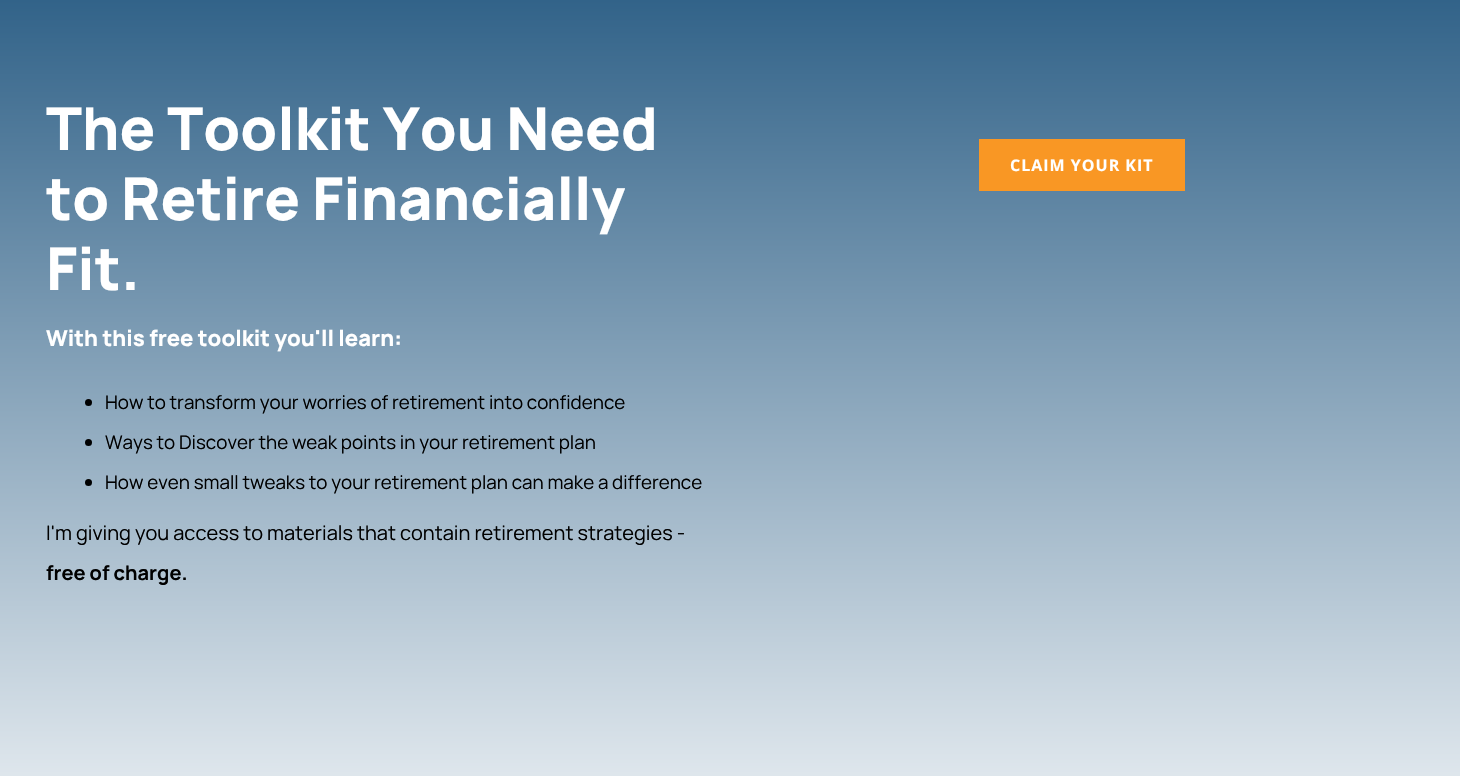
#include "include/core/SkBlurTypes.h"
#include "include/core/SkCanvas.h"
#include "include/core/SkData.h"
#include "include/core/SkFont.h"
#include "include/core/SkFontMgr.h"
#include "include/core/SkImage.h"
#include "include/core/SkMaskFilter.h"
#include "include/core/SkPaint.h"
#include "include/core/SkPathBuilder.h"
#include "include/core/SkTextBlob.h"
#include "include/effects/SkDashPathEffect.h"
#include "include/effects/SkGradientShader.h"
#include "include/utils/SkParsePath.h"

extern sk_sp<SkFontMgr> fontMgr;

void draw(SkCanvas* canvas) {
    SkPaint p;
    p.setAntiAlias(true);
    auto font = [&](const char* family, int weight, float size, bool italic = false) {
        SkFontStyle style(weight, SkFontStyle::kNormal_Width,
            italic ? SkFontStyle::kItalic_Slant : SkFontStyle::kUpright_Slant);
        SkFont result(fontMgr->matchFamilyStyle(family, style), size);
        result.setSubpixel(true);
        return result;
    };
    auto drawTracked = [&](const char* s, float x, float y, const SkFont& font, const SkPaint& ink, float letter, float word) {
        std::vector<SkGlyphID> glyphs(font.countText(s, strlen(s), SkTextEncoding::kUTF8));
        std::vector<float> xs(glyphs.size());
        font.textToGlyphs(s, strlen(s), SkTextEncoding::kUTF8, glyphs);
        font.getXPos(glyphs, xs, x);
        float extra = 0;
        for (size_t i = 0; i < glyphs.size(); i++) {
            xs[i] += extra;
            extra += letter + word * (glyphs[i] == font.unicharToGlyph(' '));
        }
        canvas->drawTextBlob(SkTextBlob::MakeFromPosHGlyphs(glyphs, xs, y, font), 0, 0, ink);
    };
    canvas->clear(0xFFFFFFFF);
    {
        const SkColor colors[] = {0xFF326389, 0xFFFFFFFF};
        const float stops[] = {0, 1};
        const SkPoint ends[] = {{730, 0}, {730, 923}};
        p.setShader(SkGradientShader::MakeLinear(ends, colors, stops, 2, SkTileMode::kClamp));
        p.setAlpha(255);
    }
    canvas->drawRect(SkRect::MakeLTRB(0, 0, 1460, 776), p);
    auto font1 = font("Manrope", 800, 59);
    p.setShader(nullptr);
    p.setColor(0xFFFFFFFF);
    {
        const struct { const char* s; float x, y; } items[] = {
            {"The Toolkit You Need", 46, 150},
            {"to Retire Financially", 46, 220},
            {"Fit.", 46, 290},
        };
        for (auto [s, x, y] : items) {
            canvas->drawString(s, x, y, font1, p);
        }
    }
    auto font2 = font("Manrope", 800, 22);
    canvas->drawString("With this free toolkit you'll learn:", 46, 346, font2, p);
    p.setColor(0xFF000000);
    canvas->drawCircle(88.5f, 402.5f, 3.5f, p);
    auto font3 = font("Manrope", 400, 18.8f);
    canvas->drawString("How to transform your worries of retirement into confidence", 105, 409, font3, p);
    canvas->drawCircle(88.5f, 442.5f, 3.5f, p);
    canvas->drawString("Ways to Discover the weak points in your retirement plan", 105, 449, font3, p);
    canvas->drawCircle(88.5f, 482.5f, 3.5f, p);
    canvas->drawString("How even small tweaks to your retirement plan can make a difference", 105, 489, font3, p);
    auto font4 = font("Manrope", 400, 20);
    canvas->drawString("I'm giving you access to materials that contain retirement strategies -", 46, 540, font4, p);
    auto font5 = font("Manrope", 700, 20);
    canvas->drawString("free of charge.", 46, 580, font5, p);
    p.setColor(0xFFF99724);
    canvas->drawRect(SkRect::MakeLTRB(979, 139, 1185, 191), p);
    auto font6 = font("Open Sans", 700, 16);
    p.setColor(0xFFFFFFFF);
    drawTracked("CLAIM YOUR KIT", 1010, 171, font6, p, 1, 0);
}
